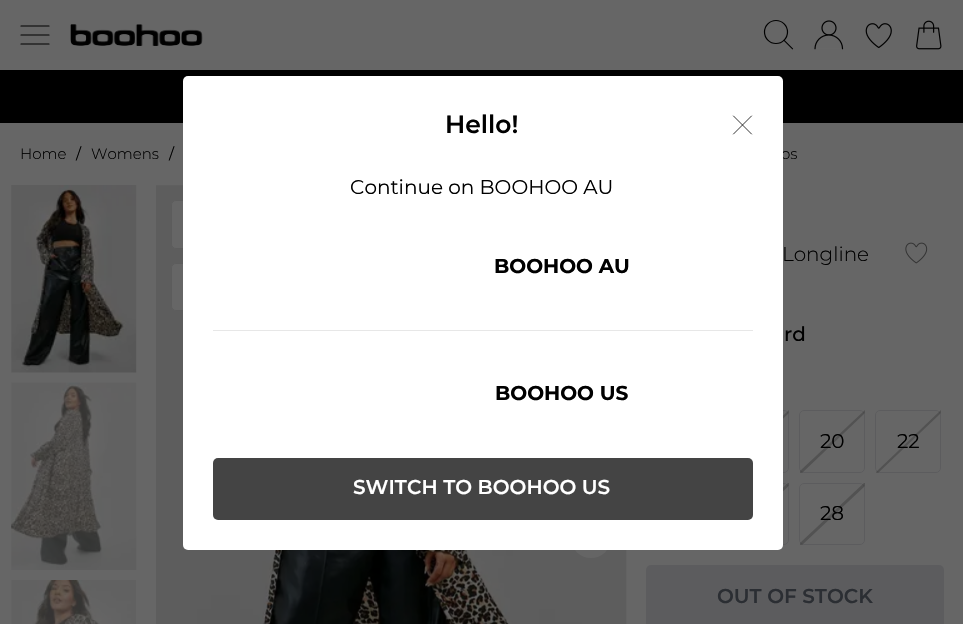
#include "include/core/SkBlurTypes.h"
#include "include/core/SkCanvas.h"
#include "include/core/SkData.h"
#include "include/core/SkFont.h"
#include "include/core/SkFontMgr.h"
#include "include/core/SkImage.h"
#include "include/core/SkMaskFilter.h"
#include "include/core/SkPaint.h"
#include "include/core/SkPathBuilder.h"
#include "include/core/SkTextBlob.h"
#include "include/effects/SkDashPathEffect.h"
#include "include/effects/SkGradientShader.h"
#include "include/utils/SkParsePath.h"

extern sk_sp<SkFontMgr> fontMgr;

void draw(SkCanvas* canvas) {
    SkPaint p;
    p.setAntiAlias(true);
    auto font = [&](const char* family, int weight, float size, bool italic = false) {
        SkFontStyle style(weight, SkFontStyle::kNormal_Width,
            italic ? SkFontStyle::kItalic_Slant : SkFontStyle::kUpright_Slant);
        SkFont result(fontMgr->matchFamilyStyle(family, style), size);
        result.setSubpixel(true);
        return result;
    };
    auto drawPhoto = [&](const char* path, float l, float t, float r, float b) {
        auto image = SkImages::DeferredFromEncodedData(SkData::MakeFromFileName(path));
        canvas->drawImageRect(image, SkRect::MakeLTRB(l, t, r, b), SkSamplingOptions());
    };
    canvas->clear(0xFF666666);
    p.setColor(0xFF000000);
    canvas->drawRect(SkRect::MakeLTRB(0, 70, 963, 123), p);
    auto font1 = font("Montserrat", 100, 15);
    canvas->drawString("os", 781, 159, font1, p);
    drawPhoto("media/8.png", 156, 185, 627, 624);
    p.setColor(0xFF656565);
    canvas->drawCircle(591, 538, 20, p);
    p.setColor(0xFF666666);
    canvas->drawRoundRect(SkRect::MakeLTRB(171.5f, 200.5f, 230.5f, 248.5f), 4.5f, 4.5f, p);
    p.setStyle(SkPaint::kStroke_Style);
    p.setStrokeWidth(1);
    p.setColor(0xFF5C5C5C);
    canvas->drawRoundRect(SkRect::MakeLTRB(171.5f, 200.5f, 230.5f, 248.5f), 4.5f, 4.5f, p);
    p.setStyle(SkPaint::kFill_Style);
    p.setColor(0xFF666666);
    canvas->drawRoundRect(SkRect::MakeLTRB(171.5f, 263.5f, 238.5f, 310.5f), 4.5f, 4.5f, p);
    p.setStyle(SkPaint::kStroke_Style);
    p.setColor(0xFF5C5C5C);
    canvas->drawRoundRect(SkRect::MakeLTRB(171.5f, 263.5f, 238.5f, 310.5f), 4.5f, 4.5f, p);
    p.setColor(0xFF5C5C5E);
    canvas->drawRoundRect(SkRect::MakeLTRB(723.5f, 410.5f, 788.5f, 472.5f), 4.5f, 4.5f, p);
    canvas->save();
    canvas->clipRect(SkRect::MakeLTRB(724, 410, 789, 473));
    p.setStyle(SkPaint::kFill_Style);
    p.setColor(0x33000000);
    canvas->drawPath(SkPathBuilder().moveTo(723, 472).lineTo(789, 410).lineTo(791, 411).lineTo(724, 474).detach(), p);
    canvas->restore();
    p.setStyle(SkPaint::kStroke_Style);
    p.setColor(0xFF5C5C5E);
    canvas->drawRoundRect(SkRect::MakeLTRB(723.5f, 483.5f, 788.5f, 544.5f), 4.5f, 4.5f, p);
    canvas->save();
    canvas->clipRect(SkRect::MakeLTRB(724, 483, 789, 545));
    p.setStyle(SkPaint::kFill_Style);
    p.setColor(0x33000000);
    canvas->drawPath(SkPathBuilder().moveTo(723, 544).lineTo(789, 482).lineTo(791, 484).lineTo(724, 546).detach(), p);
    canvas->restore();
    p.setColor(0xFFFFFFFF);
    canvas->drawRoundRect(SkRect::MakeLTRB(183, 76, 783, 550), 5, 5, p);
    auto font2 = font("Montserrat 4", 100, 25);
    p.setColor(0xFF000000);
    canvas->drawString("Hello!", 445, 133, font2, p);
    p.setStyle(SkPaint::kStroke_Style);
    p.setStrokeWidth(0.8f);
    p.setStrokeCap(SkPaint::kRound_Cap);
    canvas->drawPath(SkPathBuilder().moveTo(751.5f, 116).lineTo(733.5f, 134).moveTo(733.5f, 116).lineTo(751.5f, 134).detach(), p);
    auto font3 = font("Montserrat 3", 100, 20);
    p.setStyle(SkPaint::kFill_Style);
    canvas->drawString("Continue on BOOHOO AU", 350, 194, font3, p);
    auto font4 = font("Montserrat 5", 100, 20);
    canvas->drawString("BOOHOO AU", 494, 273, font4, p);
    p.setColor(0xFFE7E7E7);
    canvas->drawRect(SkRect::MakeLTRB(213, 330, 753, 331), p);
    p.setColor(0xFF000000);
    canvas->drawString("BOOHOO US", 495, 400, font4, p);
    p.setColor(0xFF444444);
    canvas->drawRoundRect(SkRect::MakeLTRB(213, 458, 753, 520), 5, 5, p);
    auto font5 = font("Montserrat 4", 100, 20);
    p.setColor(0xFFFFFFFF);
    canvas->drawString("SWITCH TO BOOHOO US", 353, 494, font5, p);
    p.setStyle(SkPaint::kStroke_Style);
    p.setStrokeWidth(1.2f);
    p.setColor(0xFF000000);
    canvas->drawPath(SkPathBuilder().moveTo(49, 35).lineTo(21, 35).moveTo(49, 44).lineTo(21, 44).moveTo(49, 26).lineTo(21, 26).detach(), p);
    drawPhoto("media/1.png", 70, 24, 203, 46);
    p.setStrokeCap(SkPaint::kButt_Cap);
    canvas->drawCircle(776, 32, 11.5f, p);
    p.setStyle(SkPaint::kFill_Style);
    canvas->drawPath(SkPathBuilder().moveTo(792, 49).cubicTo(792.5f, 50, 793.5f, 49, 793, 48.5f).close().moveTo(793, 48.5f).lineTo(784, 39.5f).lineTo(783.5f, 40.5f).lineTo(792, 49).close().detach(), p);
    drawPhoto("media/2.png", 814, 20, 844, 50);
    drawPhoto("media/3.png", 865, 23, 892, 49);
    drawPhoto("media/4.png", 916, 20, 942, 50);
    canvas->drawString("Home", 20, 159, font1, p);
    auto font6 = font("Montserrat 3", 100, 15);
    canvas->drawString("/", 76, 159, font6, p);
    canvas->drawString("Womens", 91, 159, font1, p);
    canvas->drawString("/", 169, 159, font6, p);
    drawPhoto("media/5.png", 11, 185, 137, 373);
    drawPhoto("media/6.png", 11, 382, 137, 570);
    drawPhoto("media/7.png", 11, 580, 136, 624);
    auto font7 = font("Montserrat", 100, 20);
    canvas->drawString("Longline", 782, 261, font7, p);
    drawPhoto("media/9.png", 905, 242, 928, 264);
    auto font8 = font("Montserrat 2", 100, 20);
    canvas->drawString("rd", 784, 341, font8, p);
    p.setStyle(SkPaint::kStroke_Style);
    p.setStrokeWidth(1);
    p.setColor(0xFF5C5C5E);
    canvas->drawRoundRect(SkRect::MakeLTRB(799.5f, 410.5f, 864.5f, 472.5f), 4.5f, 4.5f, p);
    p.setStyle(SkPaint::kFill_Style);
    p.setColor(0xFF000000);
    canvas->drawString("20", 820, 448, font3, p);
    canvas->save();
    canvas->clipRect(SkRect::MakeLTRB(800, 410, 865, 473));
    p.setColor(0x33000000);
    canvas->drawPath(SkPathBuilder().moveTo(799, 472).lineTo(865, 410).lineTo(867, 411).lineTo(801, 474).detach(), p);
    canvas->restore();
    p.setStyle(SkPaint::kStroke_Style);
    p.setColor(0xFF5C5C5E);
    canvas->drawRoundRect(SkRect::MakeLTRB(875.5f, 410.5f, 940.5f, 472.5f), 4.5f, 4.5f, p);
    p.setStyle(SkPaint::kFill_Style);
    p.setColor(0xFF000000);
    canvas->drawString("22", 897, 448, font3, p);
    canvas->save();
    canvas->clipRect(SkRect::MakeLTRB(876, 410, 941, 473));
    p.setColor(0x33000000);
    canvas->drawPath(SkPathBuilder().moveTo(876, 472).lineTo(941, 410).lineTo(943, 411).lineTo(877, 474).detach(), p);
    canvas->restore();
    p.setStyle(SkPaint::kStroke_Style);
    p.setColor(0xFF5C5C5E);
    canvas->drawRoundRect(SkRect::MakeLTRB(799.5f, 483.5f, 864.5f, 544.5f), 4.5f, 4.5f, p);
    p.setStyle(SkPaint::kFill_Style);
    p.setColor(0xFF000000);
    canvas->drawString("28", 820, 520, font3, p);
    canvas->save();
    canvas->clipRect(SkRect::MakeLTRB(800, 483, 865, 545));
    p.setColor(0x33000000);
    canvas->drawPath(SkPathBuilder().moveTo(799, 544).lineTo(865, 482).lineTo(867, 484).lineTo(801, 546).detach(), p);
    canvas->restore();
    p.setColor(0xFF5C5C5E);
    canvas->drawRoundRect(SkRect::MakeLTRB(646, 565, 944, 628), 5, 5, p);
    p.setColor(0xFF2B2E33);
    canvas->drawString("OUT OF STOCK", 717, 603, font5, p);
}
